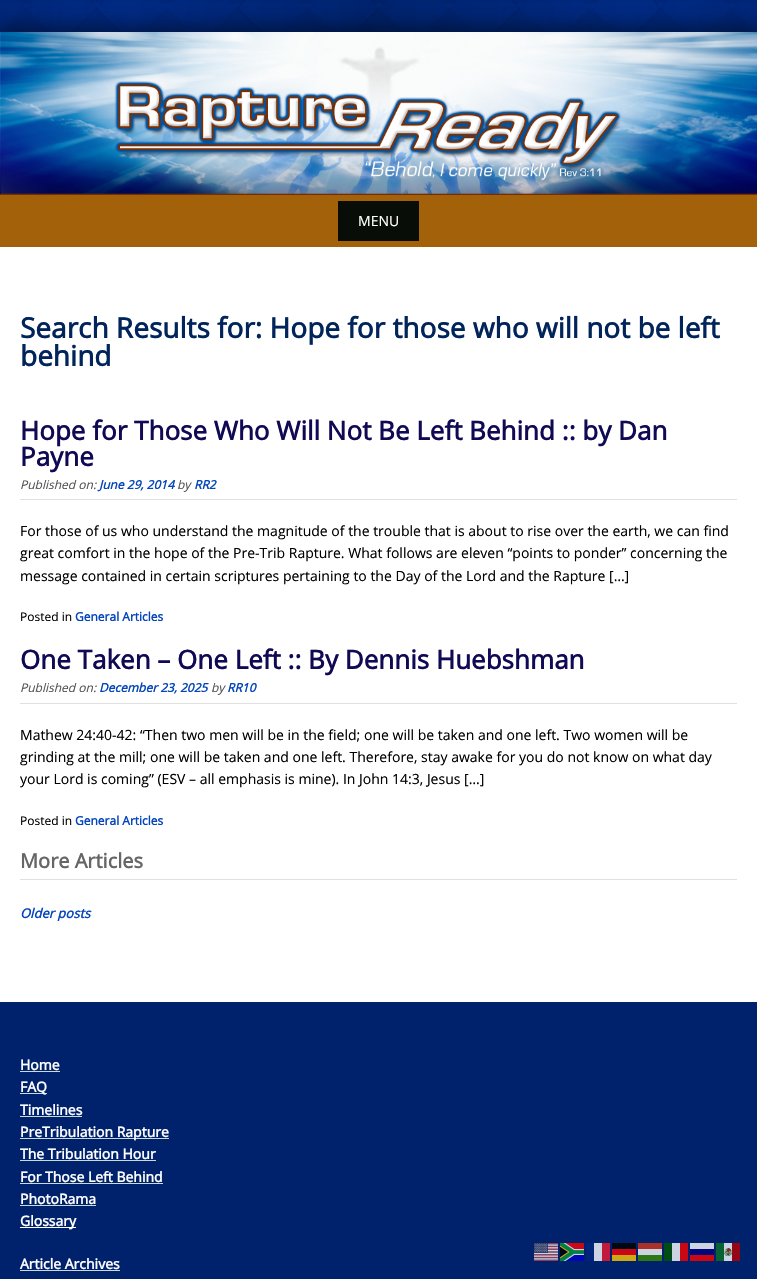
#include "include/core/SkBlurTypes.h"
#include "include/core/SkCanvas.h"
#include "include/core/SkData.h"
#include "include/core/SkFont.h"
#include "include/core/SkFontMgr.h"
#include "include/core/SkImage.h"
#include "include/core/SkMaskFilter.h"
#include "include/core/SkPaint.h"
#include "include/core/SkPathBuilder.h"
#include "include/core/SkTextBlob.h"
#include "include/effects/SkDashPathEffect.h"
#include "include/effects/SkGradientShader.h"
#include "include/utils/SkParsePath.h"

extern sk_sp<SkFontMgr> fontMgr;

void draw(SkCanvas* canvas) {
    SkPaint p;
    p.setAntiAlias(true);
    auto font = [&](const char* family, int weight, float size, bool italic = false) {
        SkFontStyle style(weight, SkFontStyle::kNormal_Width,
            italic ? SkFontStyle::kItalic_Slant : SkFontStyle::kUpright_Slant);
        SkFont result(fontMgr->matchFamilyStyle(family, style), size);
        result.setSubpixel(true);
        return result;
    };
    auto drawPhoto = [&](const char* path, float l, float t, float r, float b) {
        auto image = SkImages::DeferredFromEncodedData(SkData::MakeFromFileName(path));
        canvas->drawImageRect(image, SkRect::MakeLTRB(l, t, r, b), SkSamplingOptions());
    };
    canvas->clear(0xFFFFFFFF);
    drawPhoto("media/1.png", 0, 0, 757, 195);
    p.setColor(0x80000000);
    p.setMaskFilter(SkMaskFilter::MakeBlur(kNormal_SkBlurStyle, 10));
    canvas->drawRect(SkRect::MakeLTRB(-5, 27, 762, 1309), p);
    p.setMaskFilter(nullptr);
    drawPhoto("media/2.png", 0, 32, 757, 195);
    p.setColor(0xFFA3620A);
    canvas->drawRect(SkRect::MakeLTRB(0, 195, 757, 247), p);
    p.setColor(0xFF080D07);
    canvas->drawRect(SkRect::MakeLTRB(338, 201, 419, 241), p);
    auto font1 = font("Open Sans", 400, 14);
    p.setColor(0xFFFFFFFF);
    canvas->drawString("MENU", 358, 226, font1, p);
    canvas->drawRect(SkRect::MakeLTRB(0, 247, 757, 1002), p);
    auto font2 = font("Open Sans", 700, 28);
    p.setColor(0xFF01245B);
    canvas->drawString("Search Results for: Hope for those who will not be left", 20, 338, font2, p);
    canvas->drawString("behind", 20, 366, font2, p);
    p.setColor(0xFFE0E0E0);
    canvas->drawRect(SkRect::MakeLTRB(20, 499, 737, 500), p);
    auto font3 = font("Open Sans", 700, 26);
    p.setColor(0xFF100954);
    canvas->drawString("Hope for Those Who Will Not Be Left Behind :: by Dan", 20, 440, font3, p);
    canvas->drawString("Payne", 20, 466, font3, p);
    auto font4 = font("Open Sans", 400, 12, true);
    p.setColor(0xFF545454);
    canvas->drawString("Published on:", 20, 489, font4, p);
    auto font5 = font("Open Sans", 700, 12, true);
    p.setColor(0xFF0346BA);
    canvas->drawString("June 29, 2014", 99, 489, font5, p);
    p.setColor(0xFF545454);
    canvas->drawString("by", 177, 489, font4, p);
    p.setColor(0xFF0346BA);
    canvas->drawString("RR2", 194, 489, font5, p);
    p.setColor(0xFF000000);
    {
        const struct { const char* s; float x, y; } items[] = {
            {"For those of us who understand the magnitude of the trouble that is about to rise over the earth, we can find", 20, 536},
            {"great comfort in the hope of the Pre-Trib Rapture. What follows are eleven “points to ponder” concerning the", 20, 558},
            {"message contained in certain scriptures pertaining to the Day of the Lord and the Rapture […]", 20, 581},
        };
        for (auto [s, x, y] : items) {
            canvas->drawString(s, x, y, font1, p);
        }
    }
    auto font6 = font("Open Sans", 400, 12);
    canvas->drawString("Posted in", 20, 621, font6, p);
    auto font7 = font("Open Sans", 700, 12);
    p.setColor(0xFF0346BA);
    canvas->drawString("General Articles", 75, 621, font7, p);
    p.setColor(0xFFE0E0E0);
    canvas->drawRect(SkRect::MakeLTRB(20, 703, 737, 704), p);
    p.setColor(0xFF100954);
    canvas->drawString("One Taken – One Left :: By Dennis Huebshman", 20, 669, font3, p);
    p.setColor(0xFF545454);
    canvas->drawString("Published on:", 20, 692, font4, p);
    p.setColor(0xFF0346BA);
    canvas->drawString("December 23, 2025", 99, 692, font5, p);
    p.setColor(0xFF545454);
    canvas->drawString("by", 211, 692, font4, p);
    p.setColor(0xFF0346BA);
    canvas->drawString("RR10", 227, 692, font5, p);
    p.setColor(0xFF000000);
    {
        const struct { const char* s; float x, y; } items[] = {
            {"Mathew 24:40-42: “Then two men will be in the field; one will be taken and one left. Two women will be", 20, 740},
            {"grinding at the mill; one will be taken and one left. Therefore, stay awake for you do not know on what day", 20, 762},
            {"your Lord is coming” (ESV – all emphasis is mine). In John 14:3, Jesus […]", 20, 784},
        };
        for (auto [s, x, y] : items) {
            canvas->drawString(s, x, y, font1, p);
        }
    }
    canvas->drawString("Posted in", 20, 825, font6, p);
    p.setColor(0xFF0346BA);
    canvas->drawString("General Articles", 75, 825, font7, p);
    p.setColor(0xFFE0E0E0);
    canvas->drawRect(SkRect::MakeLTRB(20, 879, 737, 880), p);
    auto font8 = font("Open Sans", 700, 20);
    p.setColor(0xFF666666);
    canvas->drawString("More Articles", 20, 868, font8, p);
    auto font9 = font("Open Sans", 700, 13, true);
    p.setColor(0xFF0346BA);
    canvas->drawString("Older posts", 20, 918, font9, p);
    p.setColor(0xFF00216B);
    canvas->drawRect(SkRect::MakeLTRB(0, 1002, 757, 1279), p);
    auto font10 = font("Open Sans", 700, 14);
    p.setColor(0xFFFFFFFF);
    canvas->drawString("Home", 20, 1070, font10, p);
    p.setColor(0xFFCADAD7);
    canvas->drawRect(SkRect::MakeLTRB(20, 1071, 60, 1072), p);
    canvas->drawRect(SkRect::MakeLTRB(20, 1093, 47, 1094), p);
    p.setColor(0xFFFFFFFF);
    canvas->drawString("FAQ", 20, 1092, font10, p);
    canvas->drawString("Timelines", 20, 1115, font10, p);
    p.setColor(0xFFCADAD7);
    canvas->drawRect(SkRect::MakeLTRB(20, 1116, 82, 1117), p);
    canvas->drawRect(SkRect::MakeLTRB(20, 1138, 169, 1139), p);
    p.setColor(0xFFFFFFFF);
    canvas->drawString("PreTribulation Rapture", 20, 1137, font10, p);
    canvas->drawString("The Tribulation Hour", 20, 1159, font10, p);
    p.setColor(0xFFCADAD7);
    canvas->drawRect(SkRect::MakeLTRB(20, 1160, 156, 1161), p);
    p.setColor(0xFFFFFFFF);
    canvas->drawString("For Those Left Behind", 20, 1182, font10, p);
    p.setColor(0xFFCADAD7);
    canvas->drawRect(SkRect::MakeLTRB(20, 1183, 163, 1184), p);
    p.setColor(0xFFFFFFFF);
    canvas->drawString("PhotoRama", 20, 1204, font10, p);
    p.setColor(0xFFCADAD7);
    canvas->drawRect(SkRect::MakeLTRB(20, 1205, 96, 1206), p);
    p.setColor(0xFFFFFFFF);
    canvas->drawRect(SkRect::MakeLTRB(20, 1227, 76, 1228), p);
    canvas->drawString("Glossary", 20, 1226, font10, p);
    canvas->drawString("Article Archives", 20, 1269, font10, p);
    p.setColor(0xFFCADAD7);
    canvas->drawRect(SkRect::MakeLTRB(20, 1270, 120, 1271), p);
    drawPhoto("media/3.png", 534, 1243, 558, 1261);
    drawPhoto("media/4.png", 560, 1243, 584, 1261);
    {
        const struct { float l, t, r, b; SkColor color; } items[] = {
            {586, 1243, 594, 1261, 0xFF00257B},
            {594, 1243, 602, 1261, 0xFFCCD3E1},
            {602, 1243, 610, 1261, 0xFFC21A3C},
            {612, 1243, 636, 1249, 0xFF000715},
            {638, 1243, 662, 1249, 0xFFAA3127},
            {664, 1243, 672, 1261, 0xFF004C15},
            {672, 1243, 680, 1261, 0xFFCCD3E1},
            {680, 1243, 688, 1261, 0xFFCA0715},
            {690, 1243, 714, 1249, 0xFFCCD3E1},
        };
        for (auto [l, t, r, b, color] : items) {
            p.setColor(color);
            canvas->drawRect(SkRect::MakeLTRB(l, t, r, b), p);
        }
    }
    drawPhoto("media/5.png", 716, 1243, 740, 1261);
    {
        const struct { float l, t, r, b; SkColor color; } items[] = {
            {612, 1249, 636, 1255, 0xFFCC0715},
            {638, 1249, 662, 1255, 0xFFCCD3E1},
            {690, 1249, 714, 1255, 0xFF01077A},
            {612, 1255, 636, 1261, 0xFFCCAA15},
            {638, 1255, 662, 1261, 0xFF2D7715},
            {690, 1255, 714, 1261, 0xFFCB0716},
        };
        for (auto [l, t, r, b, color] : items) {
            p.setColor(color);
            canvas->drawRect(SkRect::MakeLTRB(l, t, r, b), p);
        }
    }
}
